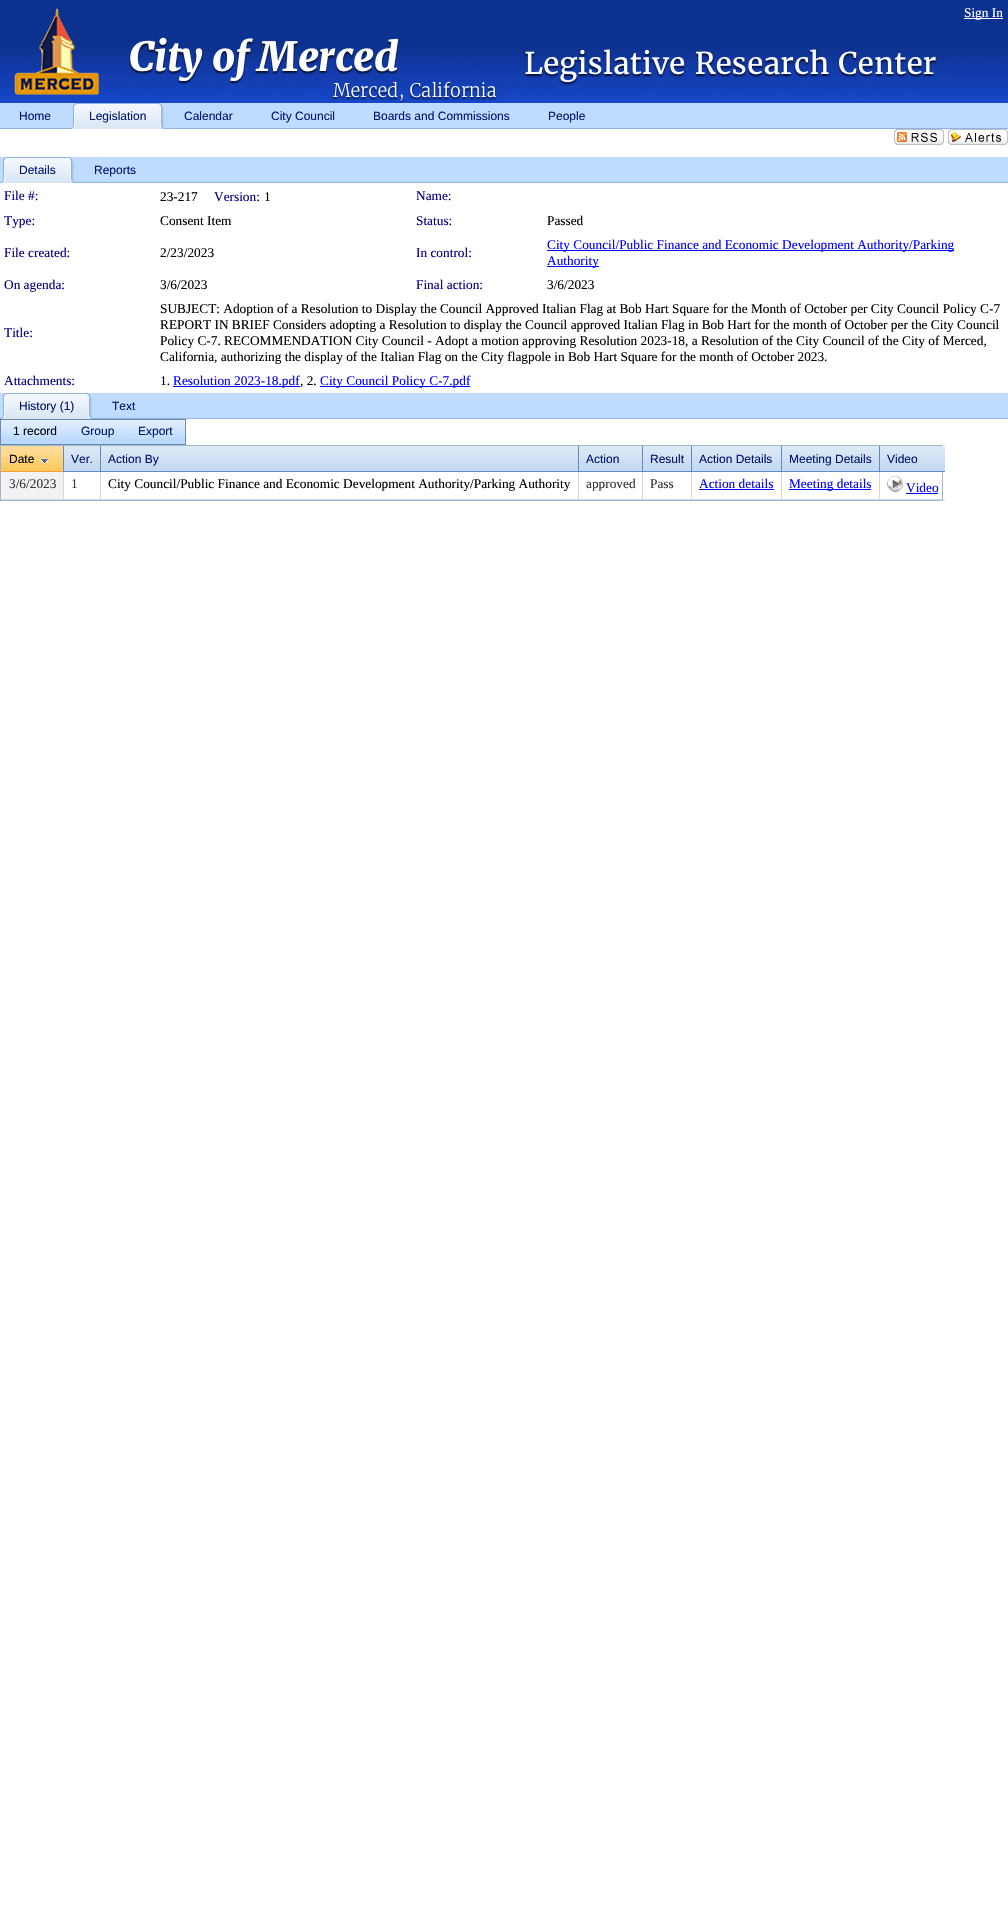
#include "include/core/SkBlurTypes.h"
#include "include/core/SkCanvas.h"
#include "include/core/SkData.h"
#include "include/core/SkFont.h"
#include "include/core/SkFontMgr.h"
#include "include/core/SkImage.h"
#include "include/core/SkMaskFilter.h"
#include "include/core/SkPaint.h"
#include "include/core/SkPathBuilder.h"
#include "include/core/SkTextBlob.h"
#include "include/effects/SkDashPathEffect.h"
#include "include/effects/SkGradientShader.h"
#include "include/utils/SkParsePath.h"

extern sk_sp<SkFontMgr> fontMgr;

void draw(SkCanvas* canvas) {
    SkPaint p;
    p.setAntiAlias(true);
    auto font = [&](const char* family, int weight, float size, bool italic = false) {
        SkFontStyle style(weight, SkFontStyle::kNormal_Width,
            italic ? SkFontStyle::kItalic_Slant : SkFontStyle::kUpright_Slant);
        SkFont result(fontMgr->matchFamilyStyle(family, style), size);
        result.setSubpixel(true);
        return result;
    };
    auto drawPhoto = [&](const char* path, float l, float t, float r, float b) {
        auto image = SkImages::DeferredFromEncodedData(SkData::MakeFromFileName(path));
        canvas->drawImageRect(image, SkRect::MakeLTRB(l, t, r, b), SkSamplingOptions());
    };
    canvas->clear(0xFFFFFFFF);
    drawPhoto("media/1.png", 0, 0, 1008, 103);
    drawPhoto("media/2.png", 0, 8, 948, 103);
    p.setColor(0xFFFFFFFF);
    canvas->drawRect(SkRect::MakeLTRB(964, 18, 1003, 19), p);
    auto font1 = font("Liberation Serif", 400, 13.33f);
    canvas->drawString("Sign In", 964, 17, font1, p);
    p.setColor(0xFFBFDBFF);
    canvas->drawRect(SkRect::MakeLTRB(0, 103, 1008, 128), p);
    p.setColor(0xFF8DB2E3);
    canvas->drawRect(SkRect::MakeLTRB(0, 128, 1008, 129), p);
    auto font2 = font("Liberation Sans", 400, 12);
    p.setColor(0xFF00156E);
    canvas->drawString("Home", 19, 120, font2, p);
    drawPhoto("media/3.png", 71, 103, 79, 129);
    drawPhoto("media/4.png", 79, 103, 165, 129);
    {
        const struct { const char* s; float x, y; } items[] = {
            {"Legislation", 89, 120},
            {"Calendar", 184, 120},
            {"City Council", 271, 120},
            {"Boards and Commissions", 373, 120},
            {"People", 548, 120},
        };
        for (auto [s, x, y] : items) {
            canvas->drawString(s, x, y, font2, p);
        }
    }
    drawPhoto("media/5.png", 894, 129, 944, 145);
    drawPhoto("media/6.png", 948, 129, 1008, 145);
    p.setColor(0xFFBFDBFF);
    canvas->drawRect(SkRect::MakeLTRB(0, 157, 1008, 182), p);
    p.setColor(0xFF8DB2E3);
    canvas->drawRect(SkRect::MakeLTRB(0, 182, 1008, 183), p);
    drawPhoto("media/7.png", 1, 157, 9, 183);
    drawPhoto("media/8.png", 9, 157, 75, 183);
    p.setColor(0xFF00156E);
    canvas->drawString("Details", 19, 174, font2, p);
    canvas->drawString("Reports", 94, 174, font2, p);
    p.setColor(0xFF000080);
    canvas->drawString("File #:", 4, 200, font1, p);
    p.setColor(0xFF000000);
    canvas->drawString("23-217", 160, 201, font1, p);
    p.setColor(0xFF000080);
    canvas->drawString("Version:", 214, 201, font1, p);
    p.setColor(0xFF000000);
    canvas->drawString("1", 264, 201, font1, p);
    p.setColor(0xFF000080);
    canvas->drawString("Name:", 416, 200, font1, p);
    canvas->drawString("Type:", 4, 225, font1, p);
    p.setColor(0xFF000000);
    canvas->drawString("Consent Item", 160, 225, font1, p);
    p.setColor(0xFF000080);
    canvas->drawString("Status:", 416, 225, font1, p);
    p.setColor(0xFF000000);
    canvas->drawString("Passed", 547, 225, font1, p);
    p.setColor(0xFF000080);
    canvas->drawString("File created:", 4, 257, font1, p);
    p.setColor(0xFF000000);
    canvas->drawString("2/23/2023", 160, 257, font1, p);
    p.setColor(0xFF000080);
    canvas->drawString("In control:", 416, 257, font1, p);
    p.setColor(0xFF0000FF);
    canvas->drawRect(SkRect::MakeLTRB(547, 250, 954, 251), p);
    canvas->drawString("City Council/Public Finance and Economic Development Authority/Parking", 547, 249, font1, p);
    canvas->drawRect(SkRect::MakeLTRB(547, 266, 599, 267), p);
    canvas->drawString("Authority", 547, 265, font1, p);
    p.setColor(0xFF000080);
    canvas->drawString("On agenda:", 4, 289, font1, p);
    p.setColor(0xFF000000);
    canvas->drawString("3/6/2023", 160, 289, font1, p);
    p.setColor(0xFF000080);
    canvas->drawString("Final action:", 416, 289, font1, p);
    p.setColor(0xFF000000);
    canvas->drawString("3/6/2023", 547, 289, font1, p);
    p.setColor(0xFF000080);
    canvas->drawString("Title:", 4, 337, font1, p);
    p.setColor(0xFF000000);
    {
        const struct { const char* s; float x, y; } items[] = {
            {"SUBJECT: Adoption of a Resolution to Display the Council Approved Italian Flag at Bob Hart Square for the Month of October per City Council Policy C-7", 160, 313},
            {"REPORT IN BRIEF Considers adopting a Resolution to display the Council approved Italian Flag in Bob Hart for the month of October per the City Council", 160, 329},
            {"Policy C-7. RECOMMENDATION City Council - Adopt a motion approving Resolution 2023-18, a Resolution of the City Council of the City of Merced,", 160, 345},
            {"California, authorizing the display of the Italian Flag on the City flagpole in Bob Hart Square for the month of October 2023.", 160, 361},
        };
        for (auto [s, x, y] : items) {
            canvas->drawString(s, x, y, font1, p);
        }
    }
    p.setColor(0xFF000080);
    canvas->drawString("Attachments:", 4, 385, font1, p);
    p.setColor(0xFF000000);
    canvas->drawString("1.", 160, 385, font1, p);
    p.setColor(0xFF0000FF);
    canvas->drawRect(SkRect::MakeLTRB(173, 386, 300, 387), p);
    canvas->drawString("Resolution 2023-18.pdf", 173, 385, font1, p);
    p.setColor(0xFF000000);
    canvas->drawString(", 2.", 300, 385, font1, p);
    p.setColor(0xFF0000FF);
    canvas->drawRect(SkRect::MakeLTRB(320, 386, 470, 387), p);
    canvas->drawString("City Council Policy C-7.pdf", 320, 385, font1, p);
    p.setColor(0xFFBFDBFF);
    canvas->drawRect(SkRect::MakeLTRB(0, 393, 1008, 418), p);
    p.setColor(0xFF8DB2E3);
    canvas->drawRect(SkRect::MakeLTRB(0, 418, 1008, 419), p);
    drawPhoto("media/3.png", 1, 393, 9, 419);
    drawPhoto("media/9.png", 9, 393, 93, 419);
    p.setColor(0xFF00156E);
    canvas->drawString("History (1)", 19, 410, font2, p);
    canvas->drawString("Text", 112, 410, font2, p);
    p.setColor(0xFFBBD9FF);
    canvas->drawRect(SkRect::MakeLTRB(1, 439, 185, 444), p);
    drawPhoto("media/10.png", 1, 420, 185, 439);
    p.setStyle(SkPaint::kStroke_Style);
    p.setStrokeWidth(1);
    p.setColor(0xFF688CAF);
    canvas->drawRect(SkRect::MakeLTRB(0.5f, 419.5f, 185.5f, 444.5f), p);
    p.setStyle(SkPaint::kFill_Style);
    p.setColor(0xFF000000);
    canvas->drawString("1 record", 13, 435, font2, p);
    p.setColor(0xFF00156E);
    canvas->drawString("Group", 81, 435, font2, p);
    canvas->drawString("Export", 138, 435, font2, p);
    p.setStyle(SkPaint::kStroke_Style);
    p.setColor(0xFF9EB6CE);
    canvas->drawRect(SkRect::MakeLTRB(0.5f, 445.5f, 942.5f, 500.5f), p);
    p.setStyle(SkPaint::kFill_Style);
    p.setColor(0xFFFFCA5E);
    canvas->drawRect(SkRect::MakeLTRB(1, 468, 63, 471), p);
    drawPhoto("media/11.png", 1, 446, 63, 468);
    p.setColor(0xFFFF9B35);
    canvas->drawRect(SkRect::MakeLTRB(1, 471, 63, 472), p);
    p.setColor(0xFF000000);
    canvas->drawString("Date", 9, 463, font2, p);
    drawPhoto("media/12.png", 41, 459, 48, 464);
    drawPhoto("media/13.png", 64, 446, 100, 471);
    p.setColor(0xFF5D8CC9);
    canvas->drawRect(SkRect::MakeLTRB(63, 471, 945, 472), p);
    canvas->drawRect(SkRect::MakeLTRB(63, 446, 64, 472), p);
    p.setColor(0xFF00156E);
    canvas->drawString("Ver.", 71, 463, font2, p);
    drawPhoto("media/14.png", 101, 446, 578, 471);
    p.setColor(0xFF5D8CC9);
    canvas->drawRect(SkRect::MakeLTRB(100, 446, 101, 472), p);
    p.setColor(0xFF00156E);
    canvas->drawString("Action By", 108, 463, font2, p);
    drawPhoto("media/15.png", 579, 446, 642, 471);
    p.setColor(0xFF5D8CC9);
    canvas->drawRect(SkRect::MakeLTRB(578, 446, 579, 472), p);
    p.setColor(0xFF00156E);
    canvas->drawString("Action", 586, 463, font2, p);
    drawPhoto("media/16.png", 643, 446, 691, 471);
    p.setColor(0xFF5D8CC9);
    canvas->drawRect(SkRect::MakeLTRB(642, 446, 643, 472), p);
    p.setColor(0xFF00156E);
    canvas->drawString("Result", 650, 463, font2, p);
    drawPhoto("media/17.png", 692, 446, 781, 471);
    p.setColor(0xFF5D8CC9);
    canvas->drawRect(SkRect::MakeLTRB(691, 446, 692, 472), p);
    p.setColor(0xFF00156E);
    canvas->drawString("Action Details", 699, 463, font2, p);
    drawPhoto("media/18.png", 782, 446, 879, 471);
    p.setColor(0xFF5D8CC9);
    canvas->drawRect(SkRect::MakeLTRB(781, 446, 782, 472), p);
    p.setColor(0xFF00156E);
    canvas->drawString("Meeting Details", 789, 463, font2, p);
    drawPhoto("media/19.png", 880, 446, 945, 471);
    p.setColor(0xFF5D8CC9);
    canvas->drawRect(SkRect::MakeLTRB(879, 446, 880, 472), p);
    p.setColor(0xFF00156E);
    canvas->drawString("Video", 887, 463, font2, p);
    p.setColor(0xFFF2F2F2);
    canvas->drawRect(SkRect::MakeLTRB(1, 472, 63, 499), p);
    p.setColor(0xFFD0D7E5);
    canvas->drawRect(SkRect::MakeLTRB(1, 499, 945, 500), p);
    p.setColor(0xFF333333);
    canvas->drawString("3/6/2023", 9, 488, font1, p);
    p.setColor(0xFFD0D7E5);
    canvas->drawRect(SkRect::MakeLTRB(63, 472, 64, 500), p);
    p.setColor(0xFF333333);
    canvas->drawString("1", 71, 488, font1, p);
    p.setColor(0xFFD0D7E5);
    canvas->drawRect(SkRect::MakeLTRB(100, 472, 101, 500), p);
    p.setColor(0xFF000000);
    canvas->drawString("City Council/Public Finance and Economic Development Authority/Parking Authority", 108, 488, font1, p);
    p.setColor(0xFFD0D7E5);
    canvas->drawRect(SkRect::MakeLTRB(578, 472, 579, 500), p);
    p.setColor(0xFF333333);
    canvas->drawString("approved", 586, 488, font1, p);
    p.setColor(0xFFD0D7E5);
    canvas->drawRect(SkRect::MakeLTRB(642, 472, 643, 500), p);
    p.setColor(0xFF333333);
    canvas->drawString("Pass", 650, 488, font1, p);
    p.setColor(0xFFD0D7E5);
    canvas->drawRect(SkRect::MakeLTRB(691, 472, 692, 500), p);
    p.setColor(0xFF0000FF);
    canvas->drawString("Action details", 699, 488, font1, p);
    {
        const struct { float l, t, r, b; SkColor color; } items[] = {
            {699, 489, 774, 490, 0xFF0000FF},
            {781, 472, 782, 500, 0xFFD0D7E5},
            {789, 489, 871, 490, 0xFF0000FF},
        };
        for (auto [l, t, r, b, color] : items) {
            p.setColor(color);
            canvas->drawRect(SkRect::MakeLTRB(l, t, r, b), p);
        }
    }
    canvas->drawString("Meeting details", 789, 488, font1, p);
    p.setColor(0xFFD0D7E5);
    canvas->drawRect(SkRect::MakeLTRB(879, 472, 880, 500), p);
    drawPhoto("media/20.png", 887, 476, 903, 492);
    p.setColor(0xFF0000FF);
    canvas->drawString("Video", 906, 492, font1, p);
    canvas->drawRect(SkRect::MakeLTRB(906, 493, 938, 494), p);
}
